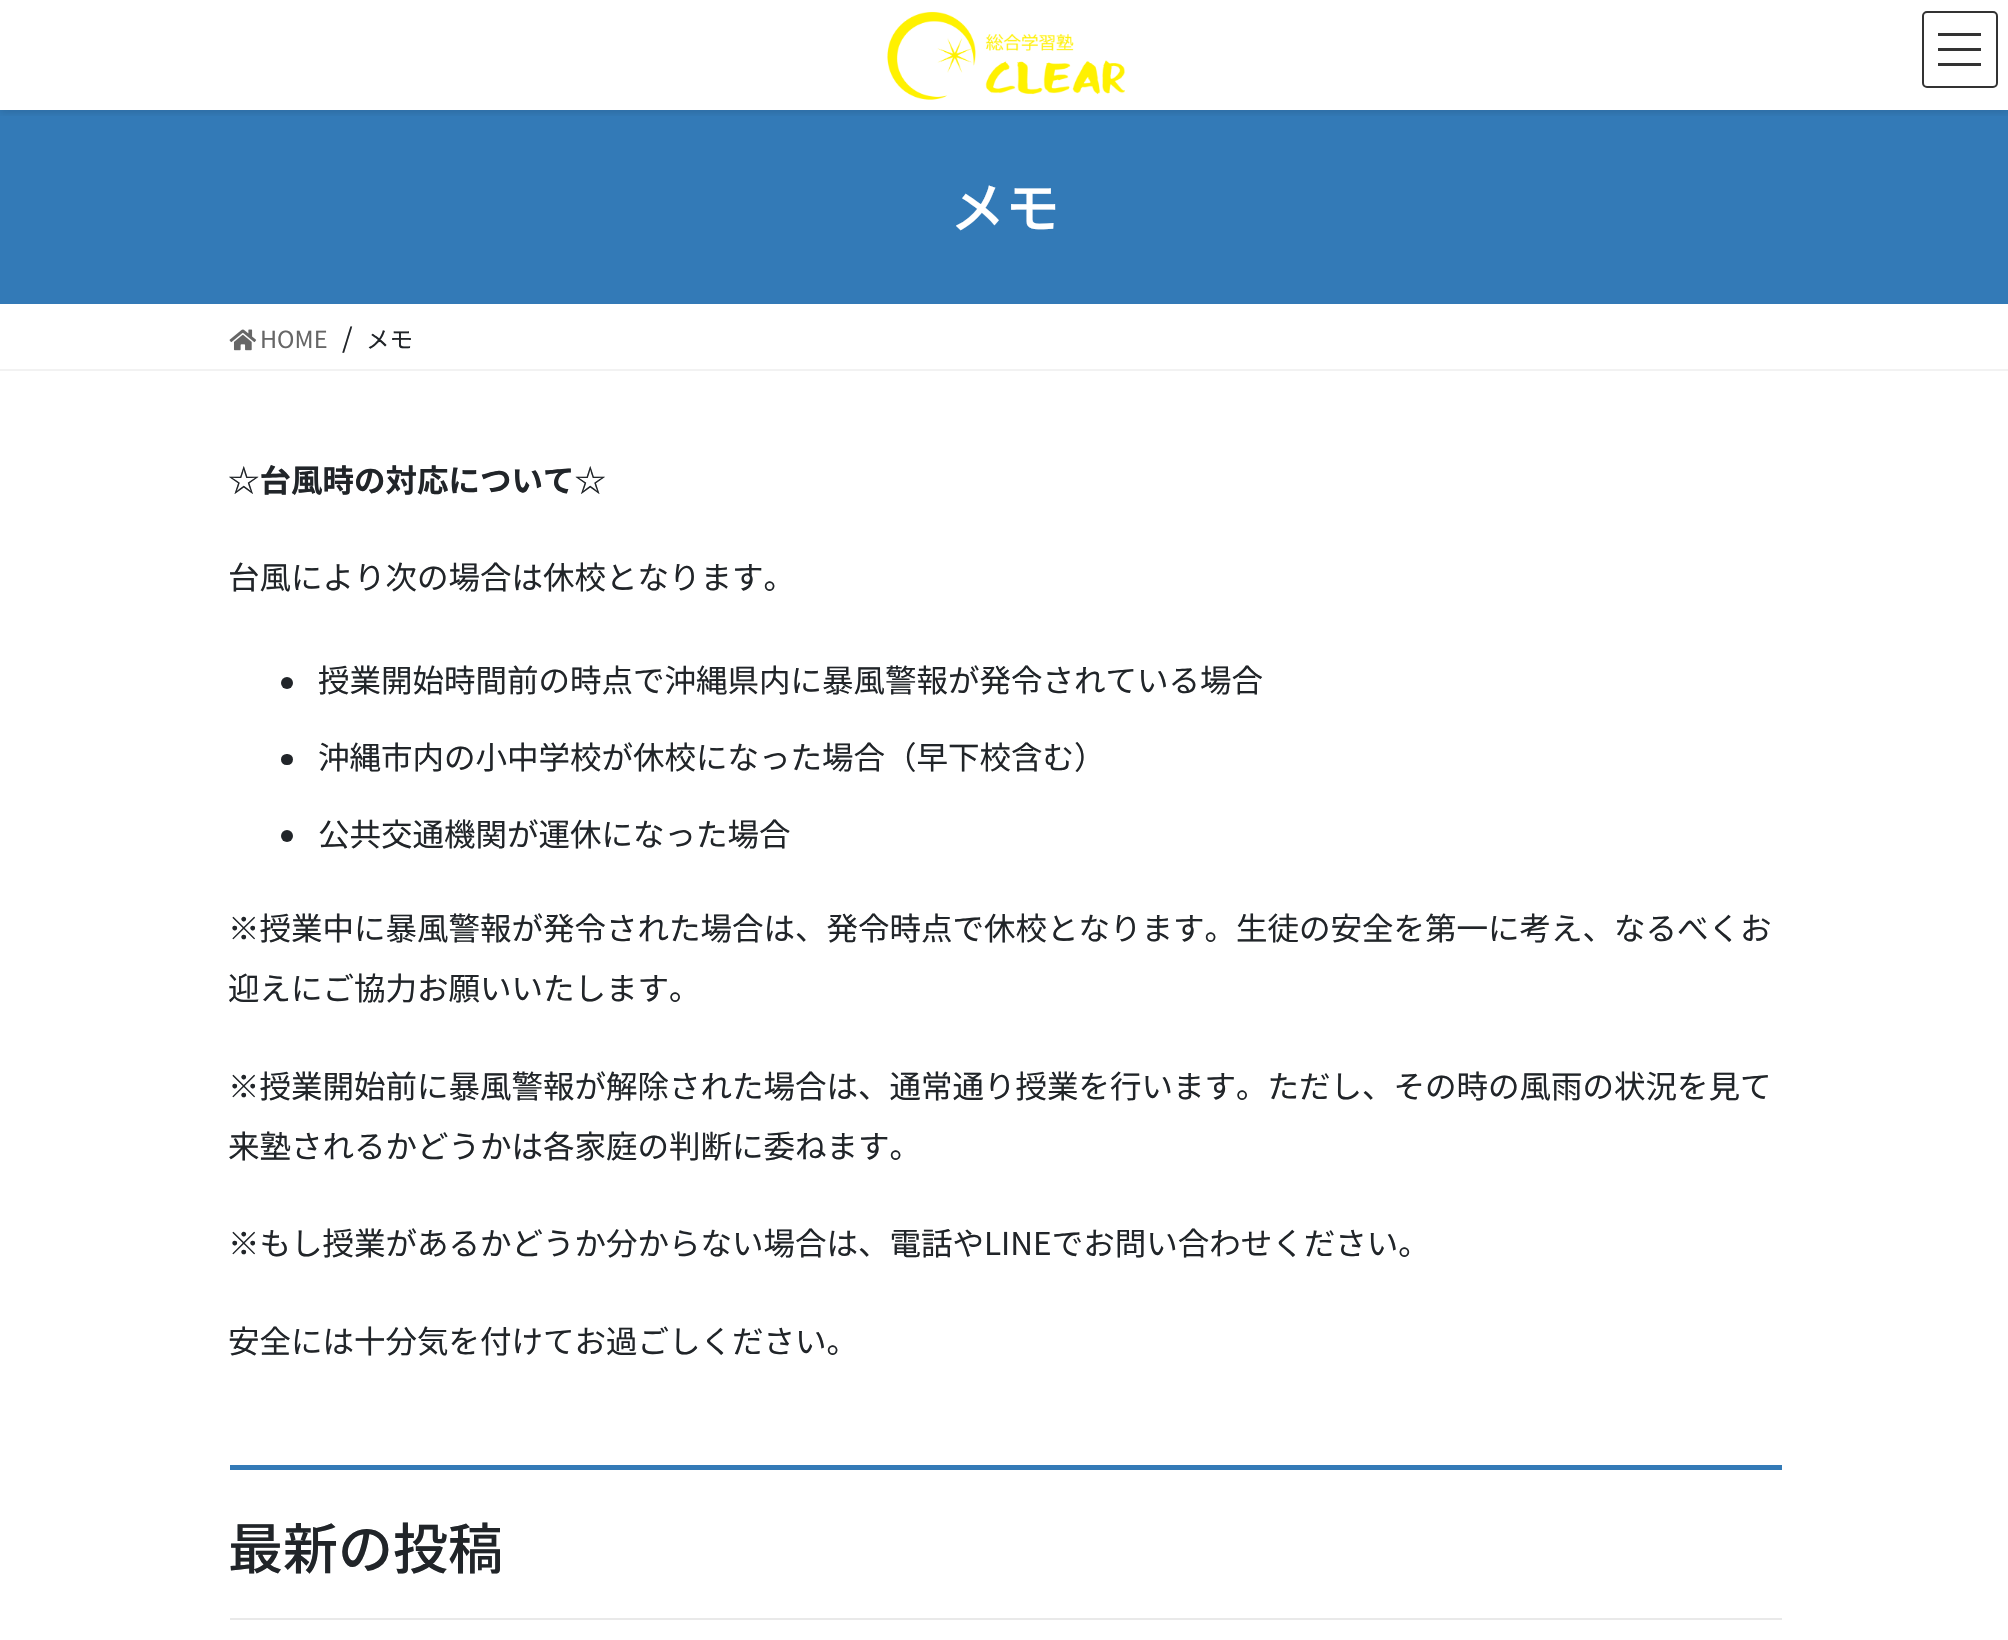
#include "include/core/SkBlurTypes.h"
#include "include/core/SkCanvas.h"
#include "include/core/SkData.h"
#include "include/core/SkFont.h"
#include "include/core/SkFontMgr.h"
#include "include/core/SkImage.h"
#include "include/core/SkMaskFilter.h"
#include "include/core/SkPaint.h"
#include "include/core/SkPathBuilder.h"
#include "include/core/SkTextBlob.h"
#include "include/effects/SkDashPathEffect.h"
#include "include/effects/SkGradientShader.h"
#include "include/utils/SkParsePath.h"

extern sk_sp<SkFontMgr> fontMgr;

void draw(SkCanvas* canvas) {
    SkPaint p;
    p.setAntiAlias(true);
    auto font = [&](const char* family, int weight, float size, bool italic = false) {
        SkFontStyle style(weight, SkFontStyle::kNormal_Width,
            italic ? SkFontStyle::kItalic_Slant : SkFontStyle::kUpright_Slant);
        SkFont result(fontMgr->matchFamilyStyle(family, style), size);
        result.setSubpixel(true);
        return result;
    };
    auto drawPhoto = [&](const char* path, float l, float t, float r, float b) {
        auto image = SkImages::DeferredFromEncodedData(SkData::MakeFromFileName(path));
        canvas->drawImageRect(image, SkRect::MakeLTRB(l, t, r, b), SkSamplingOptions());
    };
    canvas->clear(0xFFFFFFFF);
    p.setColor(0xFF337AB7);
    canvas->drawRect(SkRect::MakeLTRB(0, 110, 2008, 304), p);
    canvas->save();
    canvas->clipRect(SkRect::MakeLTRB(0, 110, 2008, 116));
    p.setColor(0x1A000000);
    p.setMaskFilter(SkMaskFilter::MakeBlur(kNormal_SkBlurStyle, 3.5f));
    canvas->drawRect(SkRect::MakeLTRB(0, 2, 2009, 113), p);
    p.setMaskFilter(nullptr);
    canvas->restore();
    drawPhoto("media/1.png", 887, 11, 1125, 100);
    {
        const struct { float l, t, r, b; SkColor color; } items[] = {
            {1938, 33, 1981, 36, 0xFF333333},
            {1938, 48, 1981, 51, 0xFF333333},
            {1938, 63, 1981, 66, 0xFF333333},
        };
        for (auto [l, t, r, b, color] : items) {
            p.setColor(color);
            canvas->drawRect(SkRect::MakeLTRB(l, t, r, b), p);
        }
    }
    p.setStyle(SkPaint::kStroke_Style);
    p.setStrokeWidth(2);
    canvas->drawRoundRect(SkRect::MakeLTRB(1923, 12, 1997, 87), 4, 4, p);
    auto font1 = font("Noto Sans JP", 500, 55);
    p.setStyle(SkPaint::kFill_Style);
    p.setColor(0xFFFFFFFF);
    canvas->drawString("メモ", 950, 228, font1, p);
    p.setColor(0xFFF2F2F2);
    canvas->drawRect(SkRect::MakeLTRB(0, 369, 2008, 371), p);
    drawPhoto("media/2.png", 229, 329, 257, 351);
    auto font2 = font("Noto Sans JP", 400, 23.5f);
    p.setColor(0xFF666666);
    canvas->drawString("HOME", 260, 348, font2, p);
    auto font3 = font("Noto Sans JP", 400, 27);
    p.setColor(0xFF212529);
    canvas->drawString("/", 342, 348, font3, p);
    canvas->drawString("メモ", 366, 348, font2, p);
    auto font4 = font("Noto Sans JP", 700, 31.5f);
    canvas->drawString("☆台風時の対応について☆", 228, 492, font4, p);
    auto font5 = font("Noto Sans JP", 400, 31.5f);
    canvas->drawString("台風により次の場合は休校となります。", 228, 589, font5, p);
    canvas->drawCircle(287, 683, 6, p);
    canvas->drawString("授業開始時間前の時点で沖縄県内に暴風警報が発令されている場合", 318, 692, font5, p);
    canvas->drawRoundRect(SkRect::MakeLTRB(281, 754, 293, 765), 5.5f, 5.5f, p);
    canvas->drawString("沖縄市内の小中学校が休校になった場合（早下校含む）", 318, 769, font5, p);
    canvas->drawCircle(287, 836, 6, p);
    {
        const struct { const char* s; float x, y; } items[] = {
            {"公共交通機関が運休になった場合", 318, 846},
            {"※授業中に暴風警報が発令された場合は、発令時点で休校となります。生徒の安全を第一に考え、なるべくお", 228, 940},
            {"迎えにご協力お願いいたします。", 228, 1000},
            {"※授業開始前に暴風警報が解除された場合は、通常通り授業を行います。ただし、その時の風雨の状況を見て", 228, 1098},
            {"来塾されるかどうかは各家庭の判断に委ねます。", 228, 1158},
            {"※もし授業があるかどうか分からない場合は、電話やLINEでお問い合わせください。", 228, 1255},
            {"安全には十分気を付けてお過ごしください。", 228, 1353},
        };
        for (auto [s, x, y] : items) {
            canvas->drawString(s, x, y, font5, p);
        }
    }
    p.setColor(0xFF337AB7);
    canvas->drawRect(SkRect::MakeLTRB(230, 1465, 1782, 1470), p);
    p.setColor(0xFFE9E9E9);
    canvas->drawRect(SkRect::MakeLTRB(230, 1618, 1782, 1620), p);
    p.setColor(0xFF212529);
    canvas->drawString("最新の投稿", 228, 1569, font1, p);
}
